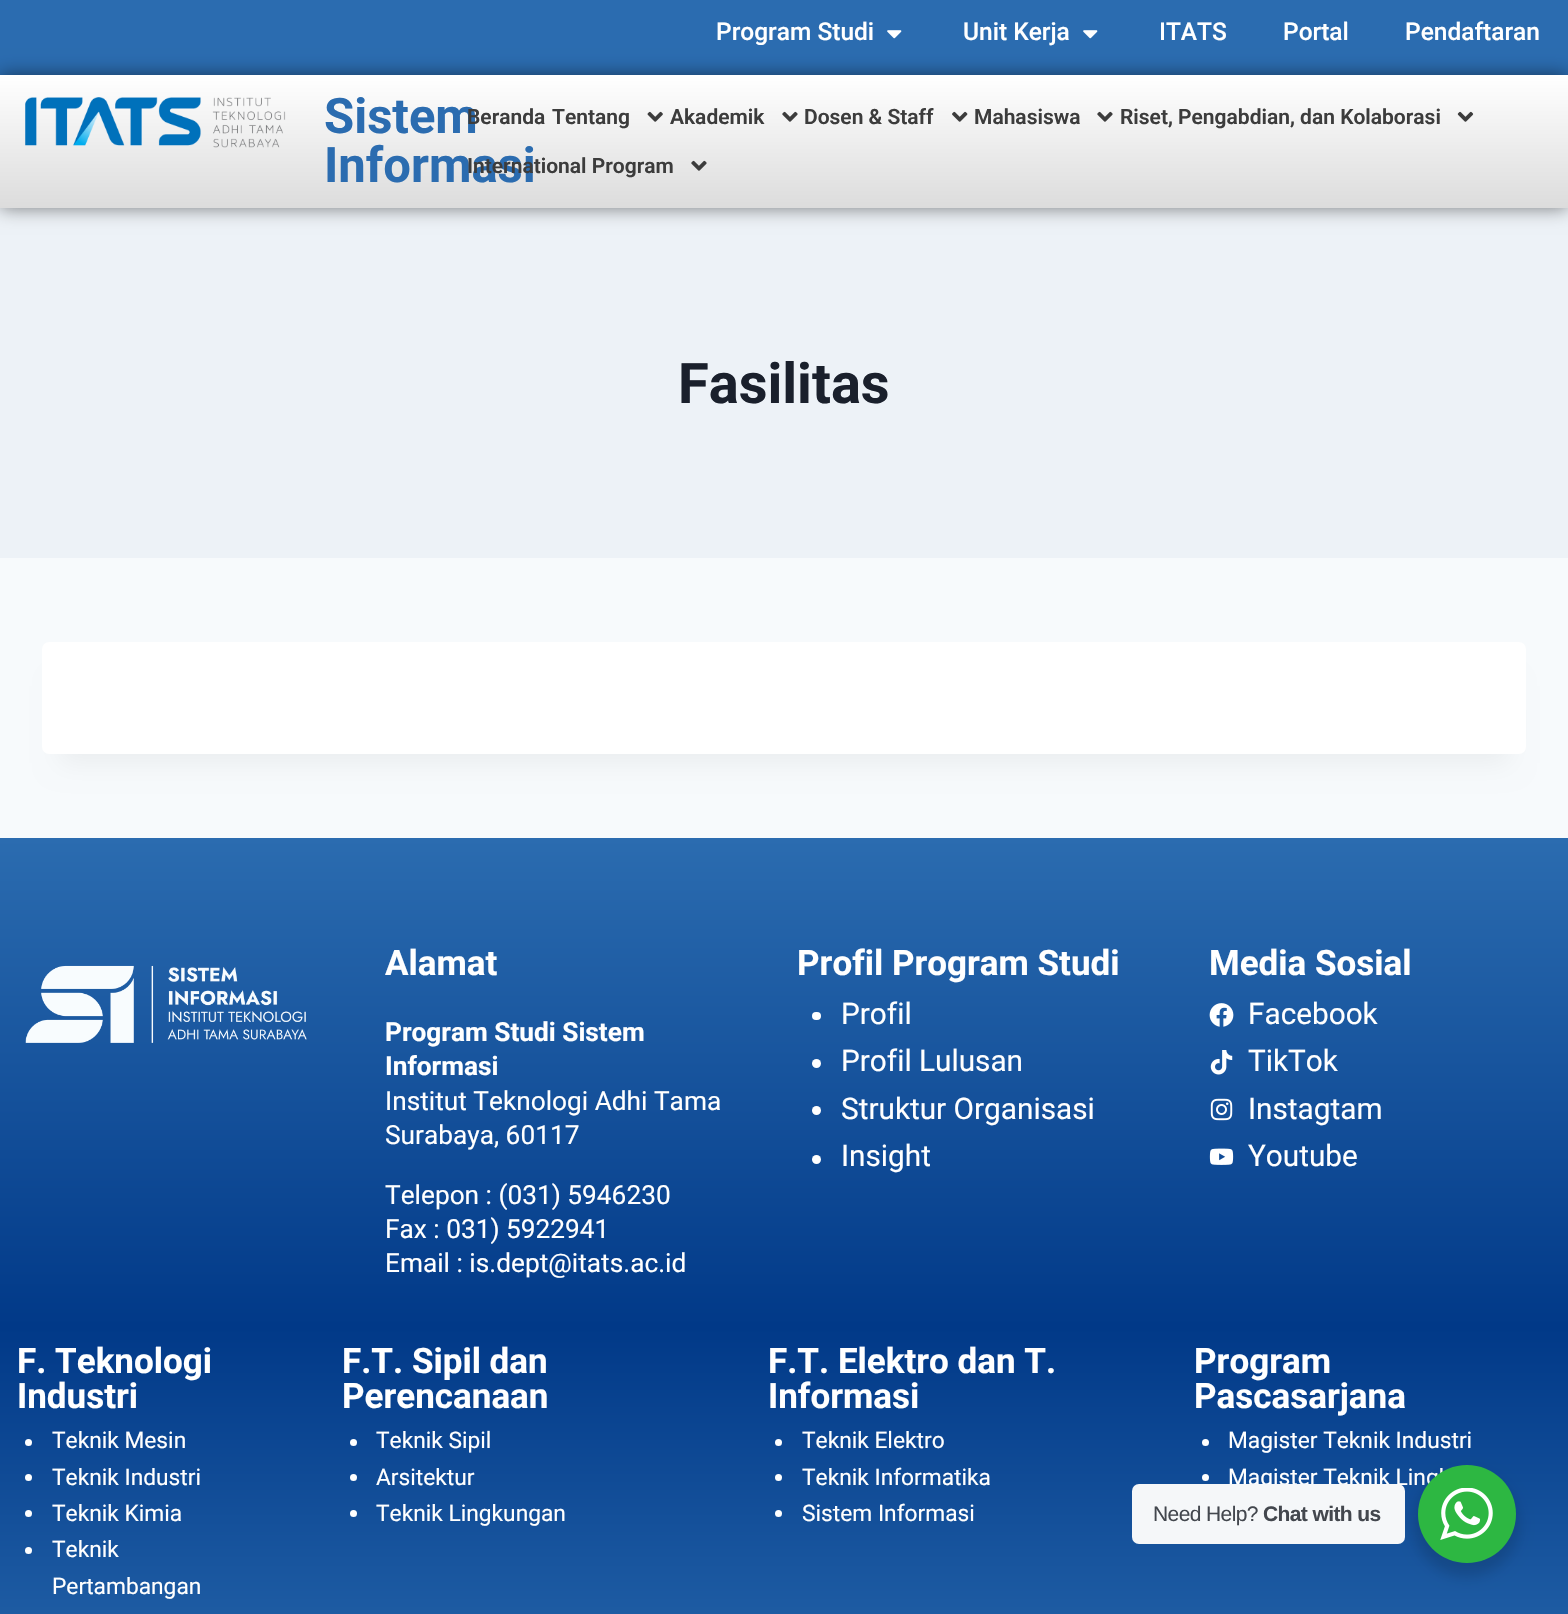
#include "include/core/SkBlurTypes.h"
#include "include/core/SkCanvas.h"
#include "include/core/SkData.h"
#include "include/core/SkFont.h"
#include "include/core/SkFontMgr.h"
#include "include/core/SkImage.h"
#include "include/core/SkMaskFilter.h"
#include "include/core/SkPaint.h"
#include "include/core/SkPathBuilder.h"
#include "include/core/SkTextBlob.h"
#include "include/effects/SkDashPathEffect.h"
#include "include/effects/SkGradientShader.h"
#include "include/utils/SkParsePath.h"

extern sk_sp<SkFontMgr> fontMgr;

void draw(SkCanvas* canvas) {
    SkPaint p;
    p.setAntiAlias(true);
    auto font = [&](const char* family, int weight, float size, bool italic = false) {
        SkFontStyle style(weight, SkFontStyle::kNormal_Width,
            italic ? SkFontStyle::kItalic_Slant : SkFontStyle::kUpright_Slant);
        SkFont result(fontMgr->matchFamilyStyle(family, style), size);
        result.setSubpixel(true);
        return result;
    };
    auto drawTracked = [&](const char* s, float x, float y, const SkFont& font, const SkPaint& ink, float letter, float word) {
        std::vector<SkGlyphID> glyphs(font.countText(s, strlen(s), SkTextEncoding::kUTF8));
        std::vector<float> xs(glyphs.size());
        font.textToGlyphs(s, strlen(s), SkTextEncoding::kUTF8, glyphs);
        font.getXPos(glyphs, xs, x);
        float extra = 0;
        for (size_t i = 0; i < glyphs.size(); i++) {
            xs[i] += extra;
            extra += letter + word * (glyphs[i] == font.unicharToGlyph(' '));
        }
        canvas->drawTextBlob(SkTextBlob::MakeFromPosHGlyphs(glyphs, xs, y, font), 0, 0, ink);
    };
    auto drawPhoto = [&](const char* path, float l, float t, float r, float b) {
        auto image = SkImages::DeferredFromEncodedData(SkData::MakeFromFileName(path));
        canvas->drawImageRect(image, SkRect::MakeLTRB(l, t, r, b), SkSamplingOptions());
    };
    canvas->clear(0xFFF7FAFC);
    p.setColor(0xFF2B6CB0);
    canvas->drawRect(SkRect::MakeLTRB(0, 0, 1568, 75), p);
    auto font1 = font("Roboto", 500, 24.5f);
    p.setColor(0xFFFFFFFF);
    canvas->drawString("Program Studi", 716, 40, font1, p);
    drawPhoto("media/1.png", 887, 30, 902, 39);
    canvas->drawString("Unit Kerja", 963, 40, font1, p);
    drawPhoto("media/1.png", 1083, 30, 1098, 39);
    {
        const struct { const char* s; float x, y; } items[] = {
            {"ITATS", 1159, 40},
            {"Portal", 1283, 40},
            {"Pendaftaran", 1405, 40},
        };
        for (auto [s, x, y] : items) {
            canvas->drawString(s, x, y, font1, p);
        }
    }
    p.setColor(0xFFEDF2F7);
    canvas->drawRect(SkRect::MakeLTRB(0, 208, 1568, 558), p);
    p.setColor(0x80000000);
    p.setMaskFilter(SkMaskFilter::MakeBlur(kNormal_SkBlurStyle, 9));
    canvas->drawRect(SkRect::MakeLTRB(0, 75, 1568, 208), p);
    p.setMaskFilter(nullptr);
    {
        const SkColor colors[] = {0xFFFFFFFF, 0xFFDCDCDC};
        const float stops[] = {0, 1};
        const SkPoint ends[] = {{784, 75}, {784, 208}};
        p.setShader(SkGradientShader::MakeLinear(ends, colors, stops, 2, SkTileMode::kClamp));
        p.setAlpha(255);
    }
    canvas->drawRect(SkRect::MakeLTRB(0, 75, 1568, 208), p);
    drawPhoto("media/2.png", 25, 97, 286, 148);
    auto font2 = font("Roboto", 700, 49);
    p.setShader(nullptr);
    p.setColor(0xFF2B6CB0);
    canvas->drawString("Sistem", 324, 133, font2, p);
    canvas->drawString("Informasi", 324, 182, font2, p);
    auto font3 = font("Roboto", 600, 21);
    p.setColor(0xFF3C3C3C);
    canvas->drawString("Beranda", 467, 124, font3, p);
    canvas->drawString("Tentang", 552, 124, font3, p);
    drawPhoto("media/3.png", 647, 111, 663, 122);
    canvas->drawString("Akademik", 670, 124, font3, p);
    drawPhoto("media/4.png", 782, 111, 798, 122);
    canvas->drawString("Dosen & Staff", 804, 124, font3, p);
    drawPhoto("media/5.png", 952, 111, 968, 122);
    canvas->drawString("Mahasiswa", 974, 124, font3, p);
    drawPhoto("media/4.png", 1097, 111, 1113, 122);
    canvas->drawString("Riset, Pengabdian, dan Kolaborasi", 1120, 124, font3, p);
    drawPhoto("media/6.png", 1457, 111, 1474, 122);
    canvas->drawString("International Program", 467, 173, font3, p);
    drawPhoto("media/7.png", 691, 160, 707, 171);
    auto font4 = font("Roboto", 700, 56);
    p.setColor(0xFF1A202C);
    canvas->drawString("Fasilitas", 678, 403, font4, p);
    p.setColor(0x0D000000);
    p.setMaskFilter(SkMaskFilter::MakeBlur(kNormal_SkBlurStyle, 13));
    canvas->drawRect(SkRect::MakeLTRB(60, 686, 1509, 763), p);
    p.setMaskFilter(nullptr);
    p.setColor(0xFFFFFFFF);
    canvas->drawRoundRect(SkRect::MakeLTRB(42, 642, 1526, 754), 7, 7, p);
    {
        const SkColor colors[] = {0xFF013988, 0xFF2B6CB0};
        const float stops[] = {0, 1};
        const SkPoint ends[] = {{784, 1327}, {784, 838}};
        p.setShader(SkGradientShader::MakeLinear(ends, colors, stops, 2, SkTileMode::kClamp));
        p.setAlpha(255);
    }
    canvas->drawRect(SkRect::MakeLTRB(0, 838, 1568, 1327), p);
    drawPhoto("media/8.png", 25, 965, 307, 1043);
    auto font5 = font("Roboto", 700, 35);
    p.setShader(nullptr);
    p.setColor(0xFFFFFFFF);
    canvas->drawString("Alamat", 385, 975, font5, p);
    auto font6 = font("Roboto", 700, 26.25f);
    canvas->drawString("Program Studi Sistem", 385, 1041, font6, p);
    canvas->drawString("Informasi", 385, 1075, font6, p);
    auto font7 = font("Roboto", 400, 26.25f);
    {
        const struct { const char* s; float x, y; } items[] = {
            {"Institut Teknologi Adhi Tama", 385, 1110},
            {"Surabaya, 60117", 385, 1144},
            {"Telepon : (031) 5946230", 385, 1204},
            {"Fax : 031) 5922941", 385, 1238},
            {"Email : is.dept@itats.ac.id", 385, 1272},
        };
        for (auto [s, x, y] : items) {
            canvas->drawString(s, x, y, font7, p);
        }
    }
    canvas->drawString("Profil Program Studi", 797, 975, font5, p);
    canvas->drawRoundRect(SkRect::MakeLTRB(812, 1012, 821, 1020), 4, 4, p);
    auto font8 = font("Roboto", 400, 29.75f);
    canvas->drawString("Profil", 841, 1024, font8, p);
    canvas->drawCircle(816.5f, 1063.5f, 4.5f, p);
    canvas->drawString("Profil Lulusan", 841, 1071, font8, p);
    canvas->drawCircle(816.5f, 1110.5f, 4.5f, p);
    canvas->drawString("Struktur Organisasi", 841, 1119, font8, p);
    canvas->drawCircle(816.5f, 1159.5f, 4.5f, p);
    canvas->drawString("Insight", 841, 1166, font8, p);
    canvas->drawString("Media Sosial", 1209, 975, font5, p);
    drawPhoto("media/9.png", 1209, 1003, 1234, 1027);
    canvas->drawString("Facebook", 1248, 1024, font8, p);
    drawPhoto("media/10.png", 1210, 1050, 1233, 1075);
    canvas->drawString("TikTok", 1248, 1071, font8, p);
    drawPhoto("media/11.png", 1210, 1098, 1233, 1121);
    canvas->drawString("Instagtam", 1248, 1119, font8, p);
    drawPhoto("media/12.png", 1209, 1148, 1234, 1165);
    canvas->drawString("Youtube", 1248, 1166, font8, p);
    {
        const SkColor colors[] = {0xFF013988, 0xFF2B6CB0};
        const float stops[] = {0, 1};
        const SkPoint ends[] = {{784, 1327}, {784, 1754}};
        p.setShader(SkGradientShader::MakeLinear(ends, colors, stops, 2, SkTileMode::kClamp));
        p.setAlpha(255);
    }
    canvas->drawRect(SkRect::MakeLTRB(0, 1327, 1568, 1614), p);
    p.setShader(nullptr);
    p.setColor(0xFFFFFFFF);
    canvas->drawString("F. Teknologi", 17, 1373, font5, p);
    canvas->drawString("Industri", 17, 1408, font5, p);
    canvas->drawCircle(28.5f, 1442.5f, 3.5f, p);
    auto font9 = font("Roboto", 400, 22.75f);
    canvas->drawString("Teknik Mesin", 52, 1448, font9, p);
    canvas->drawCircle(28.5f, 1477.5f, 3.5f, p);
    canvas->drawString("Teknik Industri", 52, 1485, font9, p);
    canvas->drawCircle(28.5f, 1513.5f, 3.5f, p);
    canvas->drawString("Teknik Kimia", 52, 1521, font9, p);
    canvas->drawCircle(28.5f, 1550.5f, 3.5f, p);
    canvas->drawString("Teknik", 52, 1557, font9, p);
    canvas->drawString("Pertambangan", 52, 1594, font9, p);
    canvas->drawString("F.T. Sipil dan", 342, 1373, font5, p);
    canvas->drawString("Perencanaan", 342, 1408, font5, p);
    canvas->drawCircle(353.5f, 1442.5f, 3.5f, p);
    canvas->drawString("Teknik Sipil", 376, 1448, font9, p);
    canvas->drawCircle(353.5f, 1477.5f, 3.5f, p);
    canvas->drawString("Arsitektur", 376, 1485, font9, p);
    canvas->drawCircle(353.5f, 1513.5f, 3.5f, p);
    canvas->drawString("Teknik Lingkungan", 376, 1521, font9, p);
    canvas->drawString("F.T. Elektro dan T.", 768, 1373, font5, p);
    canvas->drawString("Informasi", 768, 1408, font5, p);
    canvas->drawCircle(778.5f, 1442.5f, 3.5f, p);
    canvas->drawString("Teknik Elektro", 802, 1448, font9, p);
    canvas->drawCircle(778.5f, 1477.5f, 3.5f, p);
    canvas->drawString("Teknik Informatika", 802, 1485, font9, p);
    canvas->drawCircle(778.5f, 1513.5f, 3.5f, p);
    canvas->drawString("Sistem Informasi", 802, 1521, font9, p);
    canvas->drawString("Program", 1194, 1373, font5, p);
    canvas->drawString("Pascasarjana", 1194, 1408, font5, p);
    canvas->drawCircle(1205.5f, 1442.5f, 3.5f, p);
    canvas->drawString("Magister Teknik Industri", 1228, 1448, font9, p);
    canvas->drawCircle(1205.5f, 1477.5f, 3.5f, p);
    canvas->drawString("Magister Teknik Lingk", 1228, 1485, font9, p);
    p.setColor(0x24000000);
    p.setMaskFilter(SkMaskFilter::MakeBlur(kNormal_SkBlurStyle, 7));
    canvas->drawRoundRect(SkRect::MakeLTRB(1414, 1472, 1519, 1577), 52.5f, 52.5f, p);
    p.setMaskFilter(nullptr);
    p.setColor(0xFFF5F7F9);
    canvas->drawRoundRect(SkRect::MakeLTRB(1132, 1484, 1405, 1544), 7, 7, p);
    auto font10 = font("Liberation Sans", 400, 21);
    p.setColor(0xFF43474E);
    drawTracked("Need Help?", 1153, 1521, font10, p, -0.6f, 0);
    auto font11 = font("Liberation Sans", 700, 21);
    drawTracked("Chat with us", 1263, 1521, font11, p, -0.6f, 0);
    p.setColor(0xFF2DB742);
    canvas->drawCircle(1467, 1514, 49, p);
    drawPhoto("media/13.png", 1440, 1488, 1493, 1540);
}
